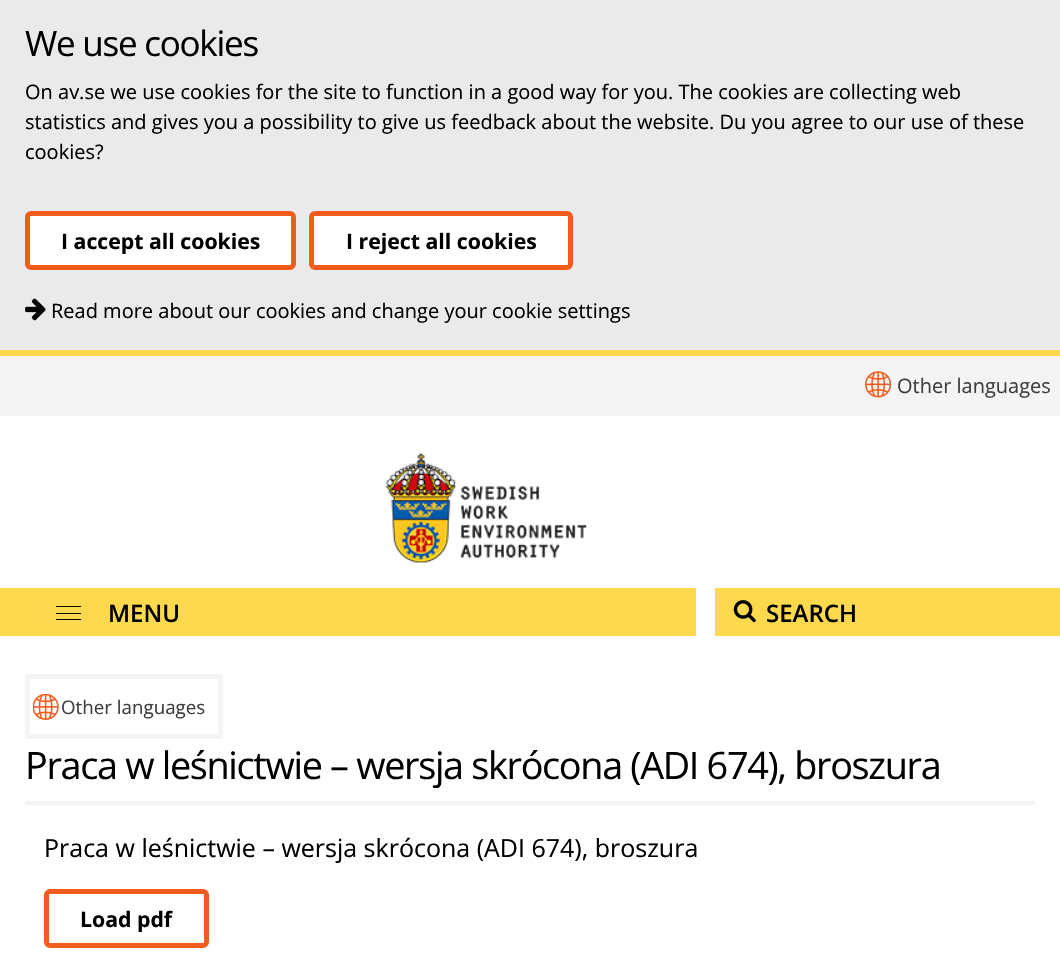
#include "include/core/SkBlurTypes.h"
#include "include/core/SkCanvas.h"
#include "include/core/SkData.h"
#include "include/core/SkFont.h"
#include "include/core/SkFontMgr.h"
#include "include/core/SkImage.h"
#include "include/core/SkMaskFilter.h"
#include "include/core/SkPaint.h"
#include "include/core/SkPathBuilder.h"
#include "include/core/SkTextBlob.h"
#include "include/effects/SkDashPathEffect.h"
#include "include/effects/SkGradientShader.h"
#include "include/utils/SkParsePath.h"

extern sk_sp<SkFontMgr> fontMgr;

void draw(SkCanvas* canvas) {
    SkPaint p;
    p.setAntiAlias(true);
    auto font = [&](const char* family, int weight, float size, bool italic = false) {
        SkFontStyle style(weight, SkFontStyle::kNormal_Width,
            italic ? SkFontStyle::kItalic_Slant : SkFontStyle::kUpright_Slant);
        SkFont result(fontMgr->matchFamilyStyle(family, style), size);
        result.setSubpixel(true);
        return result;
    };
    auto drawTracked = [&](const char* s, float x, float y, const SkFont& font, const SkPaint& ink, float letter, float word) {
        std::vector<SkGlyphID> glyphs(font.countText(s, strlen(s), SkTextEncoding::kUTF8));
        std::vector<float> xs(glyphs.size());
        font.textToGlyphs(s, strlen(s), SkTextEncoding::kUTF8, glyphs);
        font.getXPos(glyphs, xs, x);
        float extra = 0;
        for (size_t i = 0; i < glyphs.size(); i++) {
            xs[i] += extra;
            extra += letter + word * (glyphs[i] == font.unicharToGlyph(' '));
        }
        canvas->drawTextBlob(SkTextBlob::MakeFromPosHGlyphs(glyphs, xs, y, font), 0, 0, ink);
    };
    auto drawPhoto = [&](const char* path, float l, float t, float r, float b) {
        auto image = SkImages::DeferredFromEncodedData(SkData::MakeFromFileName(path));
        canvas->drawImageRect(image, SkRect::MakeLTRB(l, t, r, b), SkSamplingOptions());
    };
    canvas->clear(0xFFFFFFFF);
    p.setColor(0xFFEAEAEB);
    canvas->drawRect(SkRect::MakeLTRB(0, 0, 1060, 350), p);
    p.setColor(0xFFFFD94D);
    canvas->drawRect(SkRect::MakeLTRB(0, 350, 1060, 356), p);
    auto font1 = font("Open Sans", 400, 35);
    p.setColor(0xFF000000);
    drawTracked("We use cookies", 25, 56, font1, p, -1.25f, 0);
    auto font2 = font("Open Sans", 400, 20);
    {
        const struct { const char* s; float x, y; } items[] = {
            {"On av.se we use cookies for the site to function in a good way for you. The cookies are collecting web", 25, 99},
            {"statistics and gives you a possibility to give us feedback about the website. Du you agree to our use of these", 25, 129},
            {"cookies?", 25, 159},
        };
        for (auto [s, x, y] : items) {
            canvas->drawString(s, x, y, font2, p);
        }
    }
    p.setColor(0xFFFFFFFF);
    canvas->drawRoundRect(SkRect::MakeLTRB(27.5f, 213.5f, 293.5f, 267.5f), 3.5f, 3.5f, p);
    p.setStyle(SkPaint::kStroke_Style);
    p.setStrokeWidth(5);
    p.setColor(0xFFF35B1C);
    canvas->drawRoundRect(SkRect::MakeLTRB(27.5f, 213.5f, 293.5f, 267.5f), 3.5f, 3.5f, p);
    auto font3 = font("Open Sans", 700, 21.25f);
    p.setStyle(SkPaint::kFill_Style);
    p.setColor(0xFF000000);
    canvas->drawString("I accept all cookies", 61, 249, font3, p);
    p.setColor(0xFFFFFFFF);
    canvas->drawRoundRect(SkRect::MakeLTRB(311.5f, 213.5f, 570.5f, 267.5f), 3.5f, 3.5f, p);
    p.setStyle(SkPaint::kStroke_Style);
    p.setColor(0xFFF35B1C);
    canvas->drawRoundRect(SkRect::MakeLTRB(311.5f, 213.5f, 570.5f, 267.5f), 3.5f, 3.5f, p);
    p.setStyle(SkPaint::kFill_Style);
    p.setColor(0xFF000000);
    canvas->drawString("I reject all cookies", 346, 249, font3, p);
    drawPhoto("media/1.png", 25, 298, 46, 321);
    canvas->drawString("Read more about our cookies and change your cookie settings", 51, 318, font2, p);
    p.setColor(0xFFF4F4F5);
    canvas->drawRect(SkRect::MakeLTRB(0, 356, 1060, 416), p);
    drawPhoto("media/2.png", 865, 371, 891, 398);
    p.setColor(0xFF3E3E3E);
    canvas->drawString("Other languages", 897, 393, font2, p);
    drawPhoto("media/3.png", 386, 453, 587, 563);
    {
        const struct { float l, t, r, b; SkColor color; } items[] = {
            {0, 588, 696, 636, 0xFFFFD94D},
            {56, 606, 81, 607, 0xFF000000},
            {56, 613, 81, 614, 0xFF000000},
            {56, 619, 81, 620, 0xFF000000},
        };
        for (auto [l, t, r, b, color] : items) {
            p.setColor(color);
            canvas->drawRect(SkRect::MakeLTRB(l, t, r, b), p);
        }
    }
    auto font4 = font("Open Sans", 600, 24);
    canvas->drawString("MENU", 108, 622, font4, p);
    p.setColor(0xFFFFD94D);
    canvas->drawRect(SkRect::MakeLTRB(715, 588, 1060, 636), p);
    drawPhoto("media/4.png", 733, 600, 756, 623);
    p.setColor(0xFF000000);
    canvas->drawString("SEARCH", 766, 622, font4, p);
    p.setStyle(SkPaint::kStroke_Style);
    p.setColor(0xFFF4F4F5);
    canvas->drawRect(SkRect::MakeLTRB(27.5f, 676.5f, 220.5f, 736.5f), p);
    drawPhoto("media/5.png", 33, 694, 59, 720);
    auto font5 = font("Open Sans", 400, 18.75f);
    p.setStyle(SkPaint::kFill_Style);
    p.setColor(0xFF3E3E3E);
    canvas->drawString("Other languages", 61, 714, font5, p);
    auto font6 = font("Open Sans", 400, 37.8f);
    p.setColor(0xFF000000);
    drawTracked("Praca w leśnictwie – wersja skrócona (ADI 674), broszura", 25, 779, font6, p, -1.32f, 0);
    p.setColor(0xFFF4F4F5);
    canvas->drawRect(SkRect::MakeLTRB(25, 801, 1035, 805), p);
    auto font7 = font("Open Sans", 400, 25);
    p.setColor(0xFF000000);
    canvas->drawString("Praca w leśnictwie – wersja skrócona (ADI 674), broszura", 44, 857, font7, p);
    p.setStyle(SkPaint::kStroke_Style);
    p.setColor(0xFFF35B1C);
    canvas->drawRoundRect(SkRect::MakeLTRB(46.5f, 891.5f, 206.5f, 945.5f), 3.5f, 3.5f, p);
    p.setStyle(SkPaint::kFill_Style);
    p.setColor(0xFF000000);
    canvas->drawString("Load pdf", 80, 927, font3, p);
}
